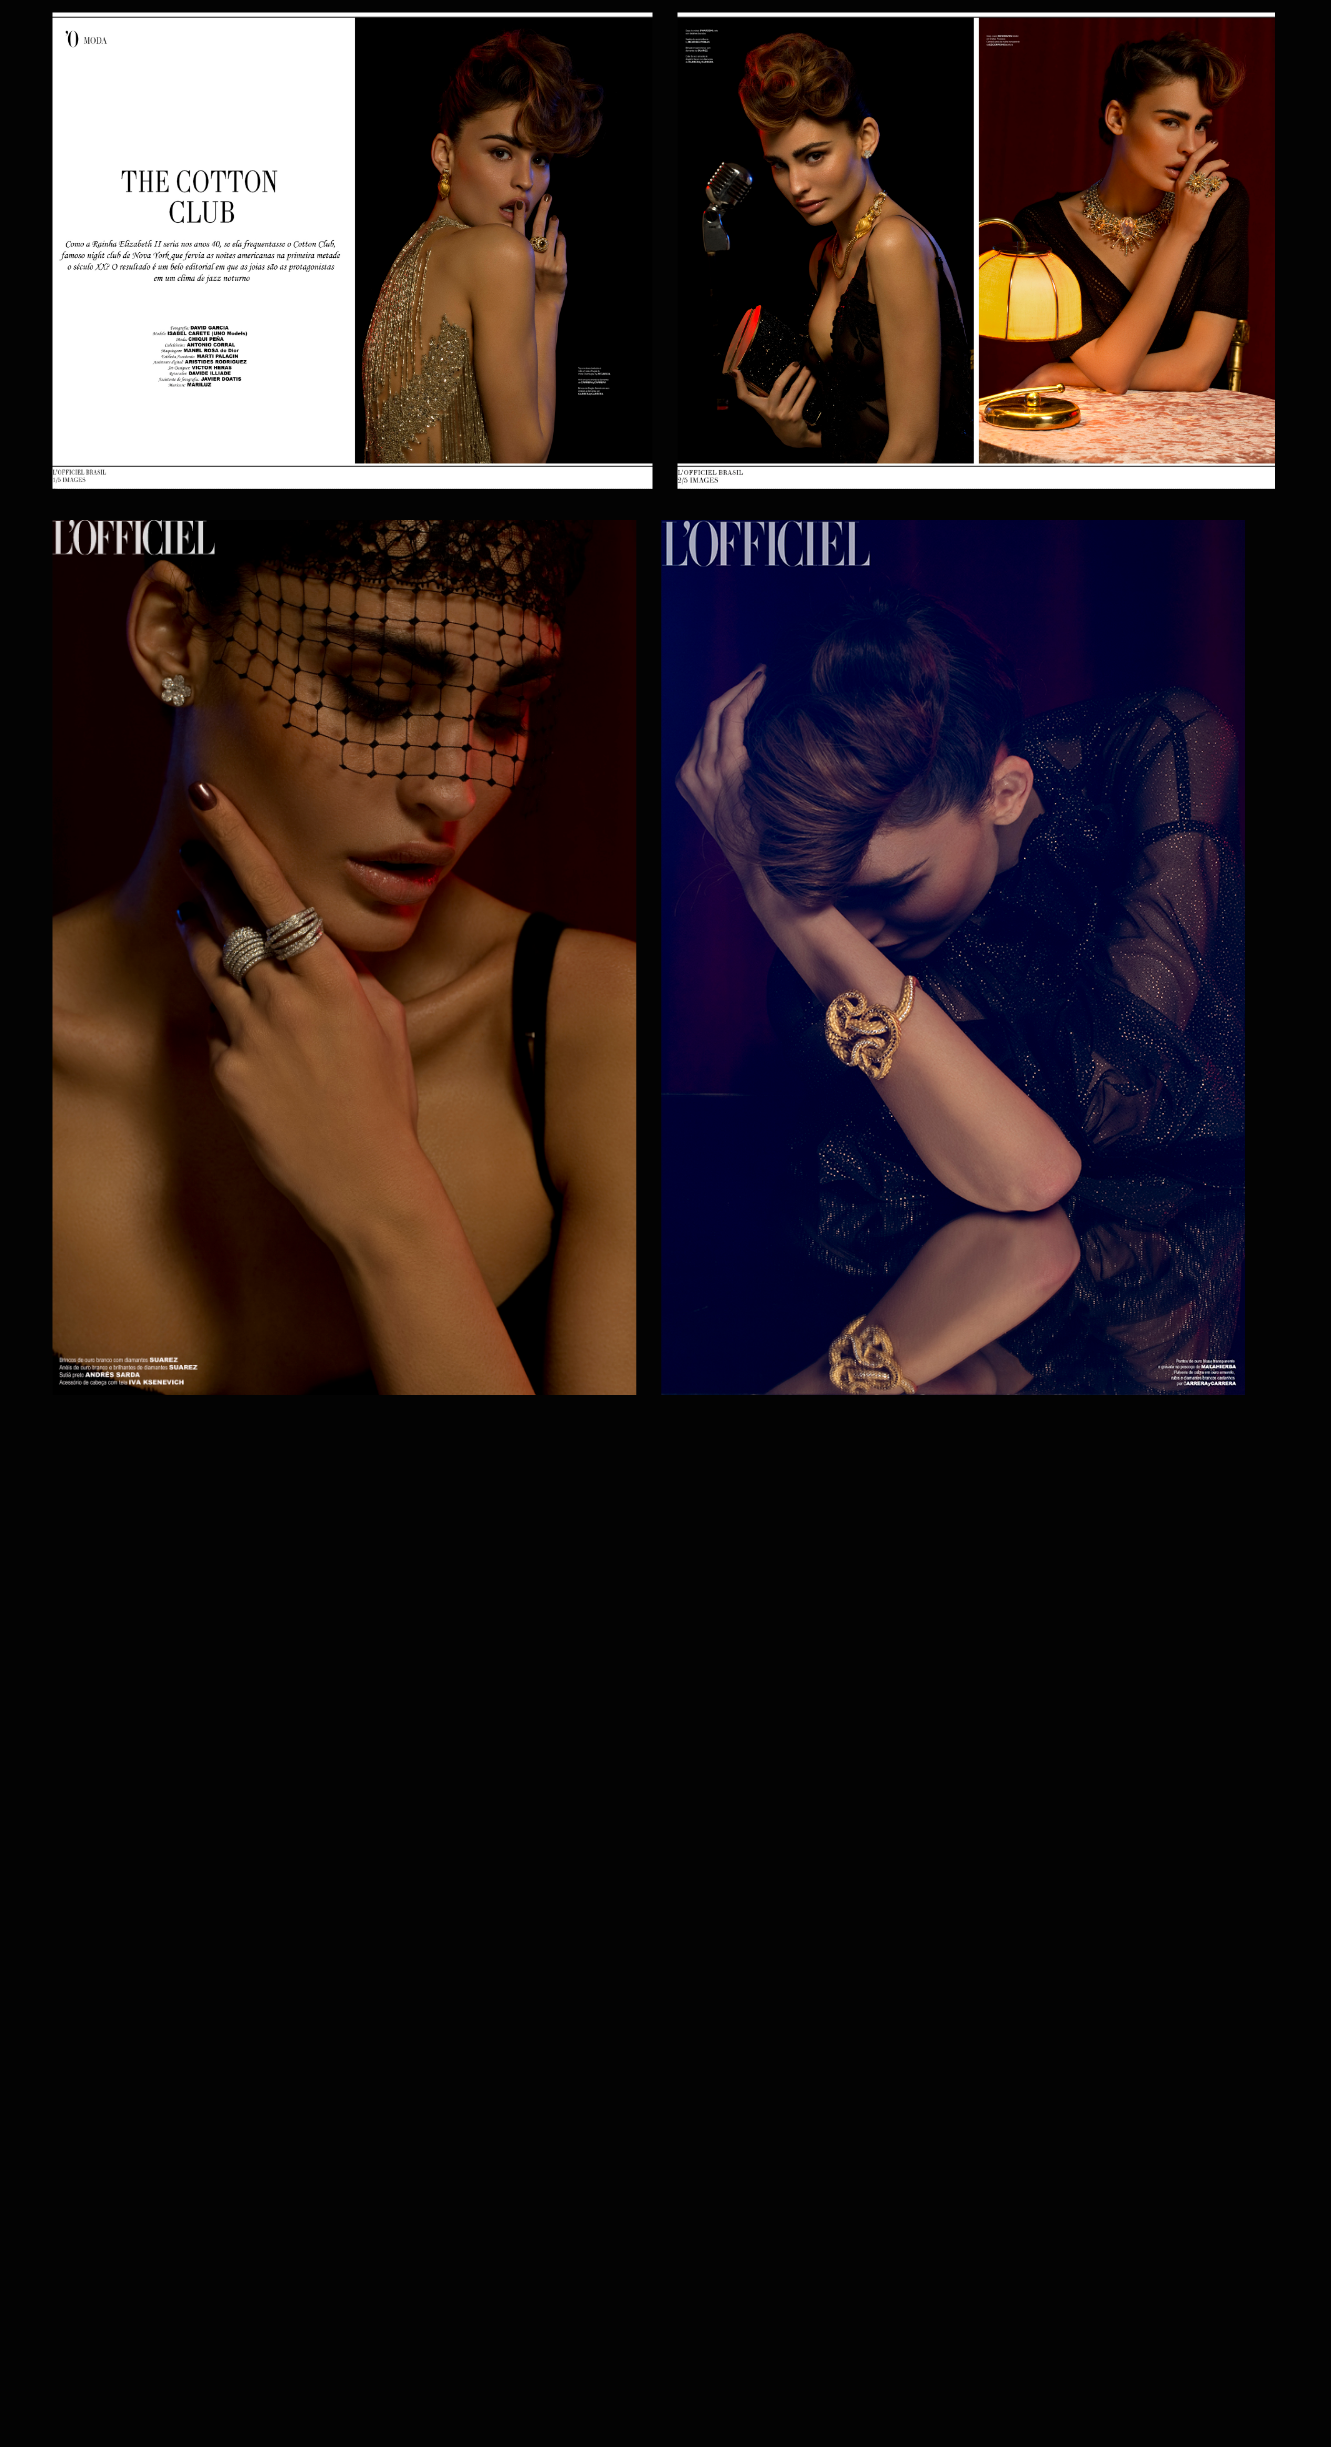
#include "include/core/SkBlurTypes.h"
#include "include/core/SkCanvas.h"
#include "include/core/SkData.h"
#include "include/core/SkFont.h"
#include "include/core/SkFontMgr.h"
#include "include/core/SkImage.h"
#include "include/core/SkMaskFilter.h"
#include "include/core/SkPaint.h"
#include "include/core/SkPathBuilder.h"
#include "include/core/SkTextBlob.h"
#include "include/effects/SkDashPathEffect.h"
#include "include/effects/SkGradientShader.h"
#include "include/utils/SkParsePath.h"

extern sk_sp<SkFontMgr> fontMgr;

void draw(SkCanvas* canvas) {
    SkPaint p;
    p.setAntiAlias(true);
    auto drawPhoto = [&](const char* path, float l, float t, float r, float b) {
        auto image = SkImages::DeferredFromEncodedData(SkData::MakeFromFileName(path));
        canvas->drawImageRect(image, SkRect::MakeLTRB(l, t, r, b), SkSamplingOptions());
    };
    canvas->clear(0xFF030303);
    drawPhoto("media/1.png", 52, 12, 653, 489);
    drawPhoto("media/2.png", 677, 12, 1275, 489);
    drawPhoto("media/3.png", 52, 520, 637, 1395);
    drawPhoto("media/4.png", 661, 520, 1245, 1395);
}
